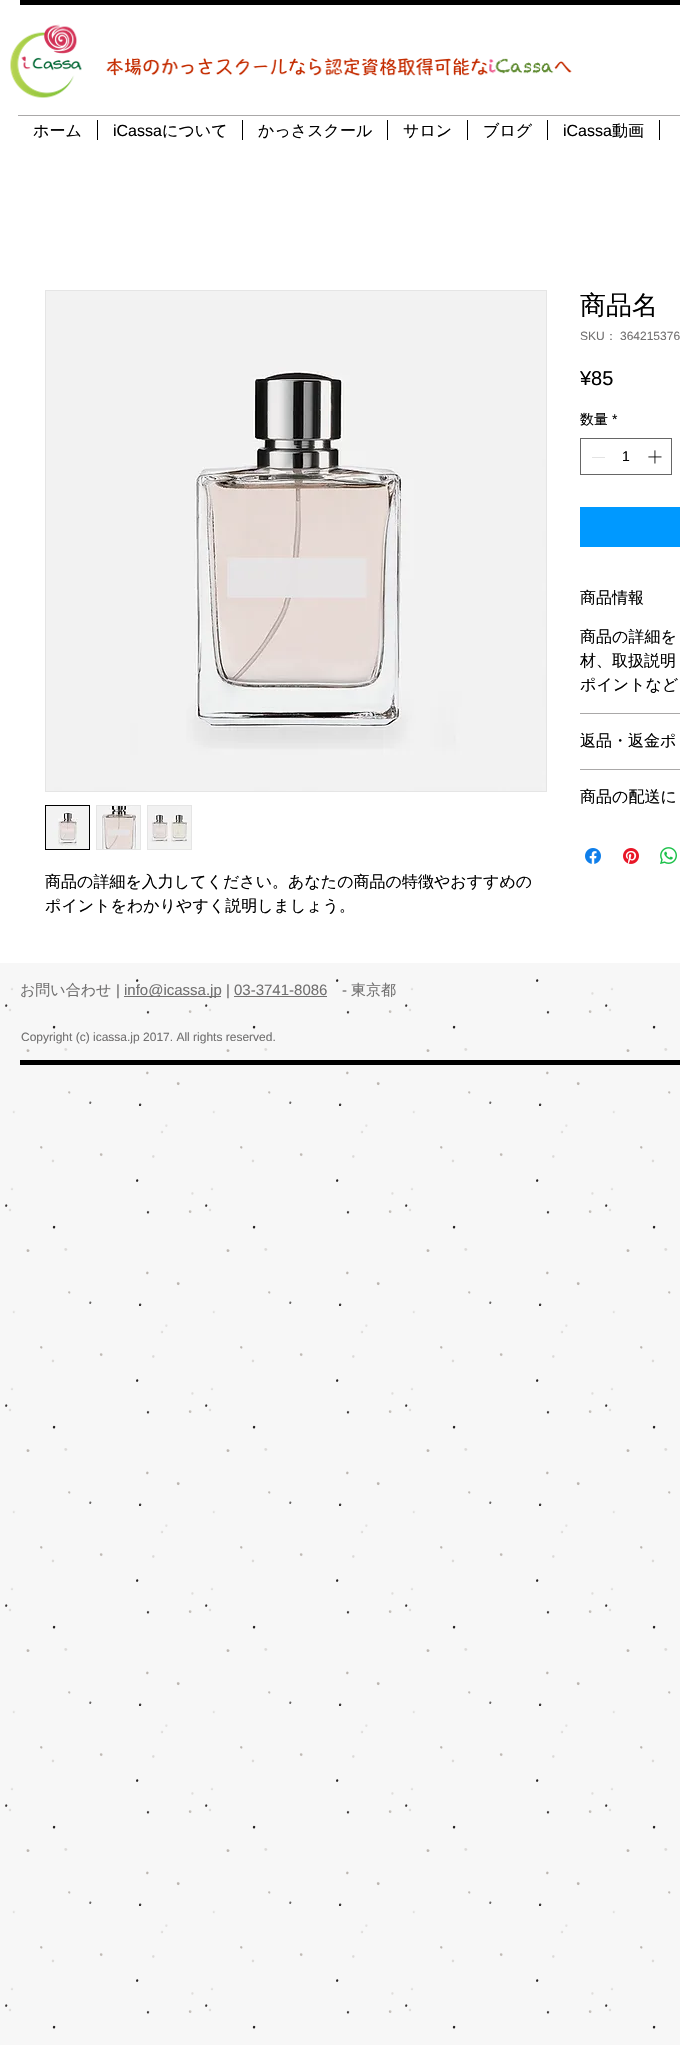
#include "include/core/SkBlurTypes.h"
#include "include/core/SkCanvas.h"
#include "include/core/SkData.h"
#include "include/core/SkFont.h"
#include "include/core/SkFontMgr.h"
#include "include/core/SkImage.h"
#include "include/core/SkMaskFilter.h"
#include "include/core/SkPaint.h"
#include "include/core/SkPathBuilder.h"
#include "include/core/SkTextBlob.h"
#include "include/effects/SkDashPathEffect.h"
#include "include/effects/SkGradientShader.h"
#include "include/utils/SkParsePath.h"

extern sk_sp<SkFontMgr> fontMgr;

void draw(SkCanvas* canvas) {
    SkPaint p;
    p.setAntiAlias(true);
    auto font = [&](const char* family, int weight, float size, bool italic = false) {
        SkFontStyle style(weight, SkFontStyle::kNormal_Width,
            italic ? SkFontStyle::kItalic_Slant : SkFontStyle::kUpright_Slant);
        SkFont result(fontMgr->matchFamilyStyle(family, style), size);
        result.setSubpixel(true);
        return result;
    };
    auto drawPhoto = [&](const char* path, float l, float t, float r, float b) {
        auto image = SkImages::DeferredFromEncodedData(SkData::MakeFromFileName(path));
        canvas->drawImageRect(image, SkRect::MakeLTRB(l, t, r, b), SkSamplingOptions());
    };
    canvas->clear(0xFFF7F7F7);
    p.setColor(0xFFFFFFFF);
    canvas->drawRect(SkRect::MakeLTRB(0, 0, 680, 963), p);
    p.setColor(0xFF000000);
    canvas->drawRect(SkRect::MakeLTRB(20, 0, 680, 5), p);
    drawPhoto("media/1.png", 10, 24, 572, 98);
    p.setColor(0xFFAAA8A8);
    canvas->drawRect(SkRect::MakeLTRB(18, 115, 680, 116), p);
    auto font1 = font("WenQuanYi Zen Hei", 500, 16);
    p.setColor(0xFF000000);
    canvas->drawString("ホーム", 33, 136, font1, p);
    canvas->drawRect(SkRect::MakeLTRB(97, 120, 98, 140), p);
    auto font2 = font("Liberation Sans", 400, 16);
    canvas->drawString("iCassa", 113, 136, font2, p);
    canvas->drawString("について", 162, 136, font1, p);
    canvas->drawRect(SkRect::MakeLTRB(242, 120, 243, 140), p);
    canvas->drawString("かっさスクール", 258, 136, font1, p);
    canvas->drawRect(SkRect::MakeLTRB(387, 120, 388, 140), p);
    canvas->drawString("サロン", 403, 136, font1, p);
    canvas->drawRect(SkRect::MakeLTRB(467, 120, 468, 140), p);
    canvas->drawString("ブログ", 483, 136, font1, p);
    canvas->drawRect(SkRect::MakeLTRB(547, 120, 548, 140), p);
    canvas->drawString("iCassa", 563, 136, font2, p);
    canvas->drawString("動画", 612, 136, font1, p);
    canvas->drawRect(SkRect::MakeLTRB(659, 120, 660, 140), p);
    auto font3 = font("WenQuanYi Zen Hei", 500, 26);
    canvas->drawString("商品名", 580, 314, font3, p);
    auto font4 = font("Liberation Sans", 400, 12);
    p.setColor(0xFF717070);
    canvas->drawString("SKU", 580, 340, font4, p);
    auto font5 = font("WenQuanYi Zen Hei", 500, 12);
    canvas->drawString("：", 605, 340, font5, p);
    canvas->drawString("364215376", 620, 340, font4, p);
    auto font6 = font("Liberation Sans", 400, 20);
    p.setColor(0xFF000000);
    canvas->drawString("¥85", 580, 385, font6, p);
    auto font7 = font("WenQuanYi Zen Hei", 500, 14);
    canvas->drawString("数量", 580, 424, font7, p);
    auto font8 = font("Liberation Sans", 400, 14);
    canvas->drawString("*", 612, 424, font8, p);
    p.setStyle(SkPaint::kStroke_Style);
    p.setStrokeWidth(1);
    p.setColor(0xFF666666);
    canvas->drawRect(SkRect::MakeLTRB(580.5f, 438.5f, 671.5f, 474.5f), p);
    p.setStyle(SkPaint::kFill_Style);
    p.setColor(0xFFE3E3E3);
    canvas->drawRect(SkRect::MakeLTRB(592, 457, 605, 458), p);
    p.setColor(0xFF000000);
    canvas->drawString("1", 622, 461, font8, p);
    drawPhoto("media/2.png", 648, 450, 662, 464);
    p.setColor(0xFF0099FF);
    canvas->drawRect(SkRect::MakeLTRB(580, 507, 680, 547), p);
    p.setColor(0xFFAAA8A8);
    canvas->drawRect(SkRect::MakeLTRB(580, 713, 680, 714), p);
    p.setColor(0xFF000000);
    {
        const struct { const char* s; float x, y; } items[] = {
            {"商品情報", 580, 603},
            {"商品の詳細を", 580, 642},
            {"材、取扱説明", 580, 666},
            {"ポイントなど", 580, 690},
        };
        for (auto [s, x, y] : items) {
            canvas->drawString(s, x, y, font1, p);
        }
    }
    p.setColor(0xFFAAA8A8);
    canvas->drawRect(SkRect::MakeLTRB(580, 769, 680, 770), p);
    p.setColor(0xFF000000);
    canvas->drawString("返品・返金ポ", 580, 746, font1, p);
    canvas->drawString("商品の配送に", 580, 802, font1, p);
    drawPhoto("media/3.png", 585, 848, 601, 864);
    drawPhoto("media/4.png", 623, 848, 639, 864);
    drawPhoto("media/5.png", 660, 847, 677, 864);
    p.setStyle(SkPaint::kStroke_Style);
    p.setColor(0xFFE5E5E5);
    canvas->drawRect(SkRect::MakeLTRB(45.5f, 290.5f, 546.5f, 791.5f), p);
    drawPhoto("media/6.png", 46, 291, 546, 791);
    p.setColor(0xFF000000);
    canvas->drawRect(SkRect::MakeLTRB(45.5f, 805.5f, 89.5f, 849.5f), p);
    drawPhoto("media/7.png", 46, 806, 89, 849);
    p.setStyle(SkPaint::kFill_Style);
    p.setColor(0xFFE5E5E5);
    canvas->drawRect(SkRect::MakeLTRB(96, 805, 141, 850), p);
    drawPhoto("media/8.png", 97, 806, 140, 849);
    canvas->drawRect(SkRect::MakeLTRB(147, 805, 192, 850), p);
    drawPhoto("media/9.png", 148, 806, 191, 849);
    p.setColor(0xFF000000);
    canvas->drawString("商品の詳細を入力してください。あなたの商品の特徴やおすすめの", 45, 887, font1, p);
    canvas->drawString("ポイントをわかりやすく説明しましょう。", 45, 911, font1, p);
    drawPhoto("media/10.png", 5, 979, 671, 2029);
    auto font9 = font("WenQuanYi Zen Hei", 500, 15);
    p.setColor(0xFF717070);
    canvas->drawString("お問い合わせ", 20, 995, font9, p);
    auto font10 = font("Liberation Sans", 400, 15);
    canvas->drawString("|", 116, 995, font10, p);
    canvas->drawRect(SkRect::MakeLTRB(124, 996, 221, 997), p);
    canvas->drawString("info@icassa.jp | 03-3741-8086", 124, 995, font10, p);
    canvas->drawRect(SkRect::MakeLTRB(234, 996, 327, 997), p);
    canvas->drawString("-", 342, 995, font10, p);
    canvas->drawString("東京都", 351, 995, font9, p);
    canvas->drawString("Copyright (c) icassa.jp 2017. All rights reserved.", 21, 1041, font4, p);
    p.setColor(0xFF000000);
    canvas->drawRect(SkRect::MakeLTRB(20, 1060, 680, 1065), p);
}
